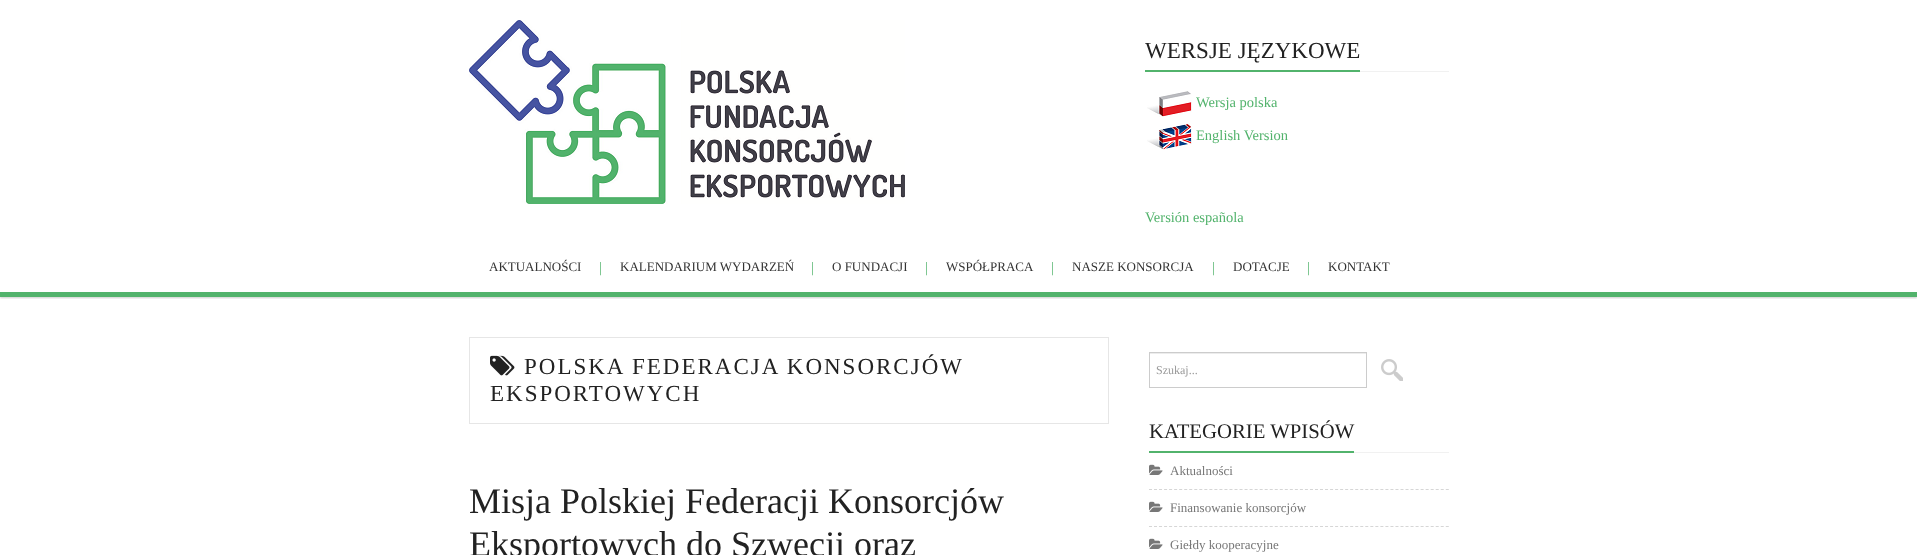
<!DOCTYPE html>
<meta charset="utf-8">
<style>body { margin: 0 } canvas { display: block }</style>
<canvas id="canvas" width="1917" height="555"></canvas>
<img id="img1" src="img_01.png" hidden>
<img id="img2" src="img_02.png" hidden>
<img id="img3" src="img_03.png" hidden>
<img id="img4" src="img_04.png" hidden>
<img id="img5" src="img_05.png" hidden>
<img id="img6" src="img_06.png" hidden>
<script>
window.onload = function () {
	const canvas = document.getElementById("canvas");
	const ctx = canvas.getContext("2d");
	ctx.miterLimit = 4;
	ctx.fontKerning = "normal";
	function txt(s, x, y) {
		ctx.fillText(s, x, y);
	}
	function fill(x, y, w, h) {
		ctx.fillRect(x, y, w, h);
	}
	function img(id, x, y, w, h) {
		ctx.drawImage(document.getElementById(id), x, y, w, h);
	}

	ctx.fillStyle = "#FFFFFF";
	fill(0, 0, 1917, 555);
	ctx.save();
	ctx.beginPath();
	ctx.rect(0, 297, 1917, 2);
	ctx.clip();
	ctx.fillStyle = "rgba(0, 0, 0, 0.2)";
	ctx.filter = "blur(1px)";
	ctx.beginPath();
	ctx.rect(0, 1, 1917, 297);
	ctx.fill();
	ctx.filter = "none";
	ctx.restore();
	ctx.fillStyle = "#52B36C";
	fill(0, 292, 1917, 5);
	img("img1", 469, 20, 436, 184);
	ctx.fillStyle = "#F1F1F1";
	fill(1360, 71, 89, 1);
	ctx.fillStyle = "#52B36C";
	fill(1145, 70, 215, 2);
	img("img2", 1147, 91, 45, 26);
	img("img3", 1147, 123, 45, 27);
	ctx.strokeStyle = "#E6E6E6";
	ctx.strokeRect(469.5, 337.5, 639, 86);
	img("img4", 490, 355, 25, 21);
	ctx.fillStyle = "#ECECEC";
	fill(1150, 353, 216, 1);
	ctx.strokeStyle = "#CCCCCC";
	ctx.strokeRect(1149.5, 352.5, 217, 35);
	img("img5", 1381, 359, 22, 22);
	ctx.fillStyle = "#F1F1F1";
	fill(1354, 452, 95, 1);
	ctx.fillStyle = "#52B36C";
	fill(1149, 451, 205, 2);
	ctx.beginPath();
	ctx.moveTo(1149, 489.5);
	ctx.lineTo(1449, 489.5);
	ctx.strokeStyle = "#D6D6D6";
	ctx.setLineDash([3, 2.03]);
	ctx.stroke();
	img("img6", 1149, 464, 14, 11);
	ctx.beginPath();
	ctx.moveTo(1149, 526.5);
	ctx.lineTo(1449, 526.5);
	ctx.stroke();
	img("img6", 1149, 501, 14, 11);
	img("img6", 1149, 538, 14, 11);
	ctx.font = "23px Liberation Serif";
	ctx.fillStyle = "#222222";
	txt("WERSJE JĘZYKOWE", 1145, 58);
	ctx.font = "14.5px Liberation Serif";
	ctx.fillStyle = "#52B36C";
	txt("Wersja polska", 1196, 107);
	txt("English Version", 1196, 140);
	txt("Versión española", 1145, 222);
	ctx.font = "13px Liberation Serif";
	ctx.fillStyle = "#333333";
	txt("AKTUALNOŚCI", 489, 271);
	ctx.font = "14.5px Liberation Serif";
	ctx.fillStyle = "#52B36C";
	txt("|", 599, 272);
	ctx.font = "13px Liberation Serif";
	ctx.fillStyle = "#333333";
	txt("KALENDARIUM WYDARZEŃ", 620, 271);
	ctx.font = "14.5px Liberation Serif";
	ctx.fillStyle = "#52B36C";
	txt("|", 811, 272);
	ctx.font = "13px Liberation Serif";
	ctx.fillStyle = "#333333";
	txt("O FUNDACJI", 832, 271);
	ctx.font = "14.5px Liberation Serif";
	ctx.fillStyle = "#52B36C";
	txt("|", 925, 272);
	ctx.font = "13px Liberation Serif";
	ctx.fillStyle = "#333333";
	txt("WSPÓŁPRACA", 946, 271);
	ctx.font = "14.5px Liberation Serif";
	ctx.fillStyle = "#52B36C";
	txt("|", 1051, 272);
	ctx.font = "13px Liberation Serif";
	ctx.fillStyle = "#333333";
	txt("NASZE KONSORCJA", 1072, 271);
	ctx.font = "14.5px Liberation Serif";
	ctx.fillStyle = "#52B36C";
	txt("|", 1212, 272);
	ctx.font = "13px Liberation Serif";
	ctx.fillStyle = "#333333";
	txt("DOTACJE", 1233, 271);
	ctx.font = "14.5px Liberation Serif";
	ctx.fillStyle = "#52B36C";
	txt("|", 1307, 272);
	ctx.font = "13px Liberation Serif";
	ctx.fillStyle = "#333333";
	txt("KONTAKT", 1328, 271);
	ctx.letterSpacing = "2px";
	ctx.font = "23px Liberation Serif";
	ctx.fillStyle = "#222222";
	txt("POLSKA FEDERACJA KONSORCJÓW", 524, 374);
	txt("EKSPORTOWYCH", 490, 401);
	ctx.letterSpacing = "0px";
	ctx.font = "36px Liberation Serif";
	txt("Misja Polskiej Federacji Konsorcjów", 469, 513);
	txt("Eksportowych do Szwecji oraz", 469, 556);
	ctx.font = "12px Liberation Serif";
	ctx.fillStyle = "#999999";
	txt("Szukaj...", 1156, 374);
	ctx.font = "20.75px Liberation Serif";
	ctx.fillStyle = "#222222";
	txt("KATEGORIE WPISÓW", 1149, 438);
	ctx.font = "13px Liberation Serif";
	ctx.fillStyle = "#777777";
	txt("Aktualności", 1170, 475);
	txt("Finansowanie konsorcjów", 1170, 512);
	txt("Giełdy kooperacyjne", 1170, 549);
};
</script>
